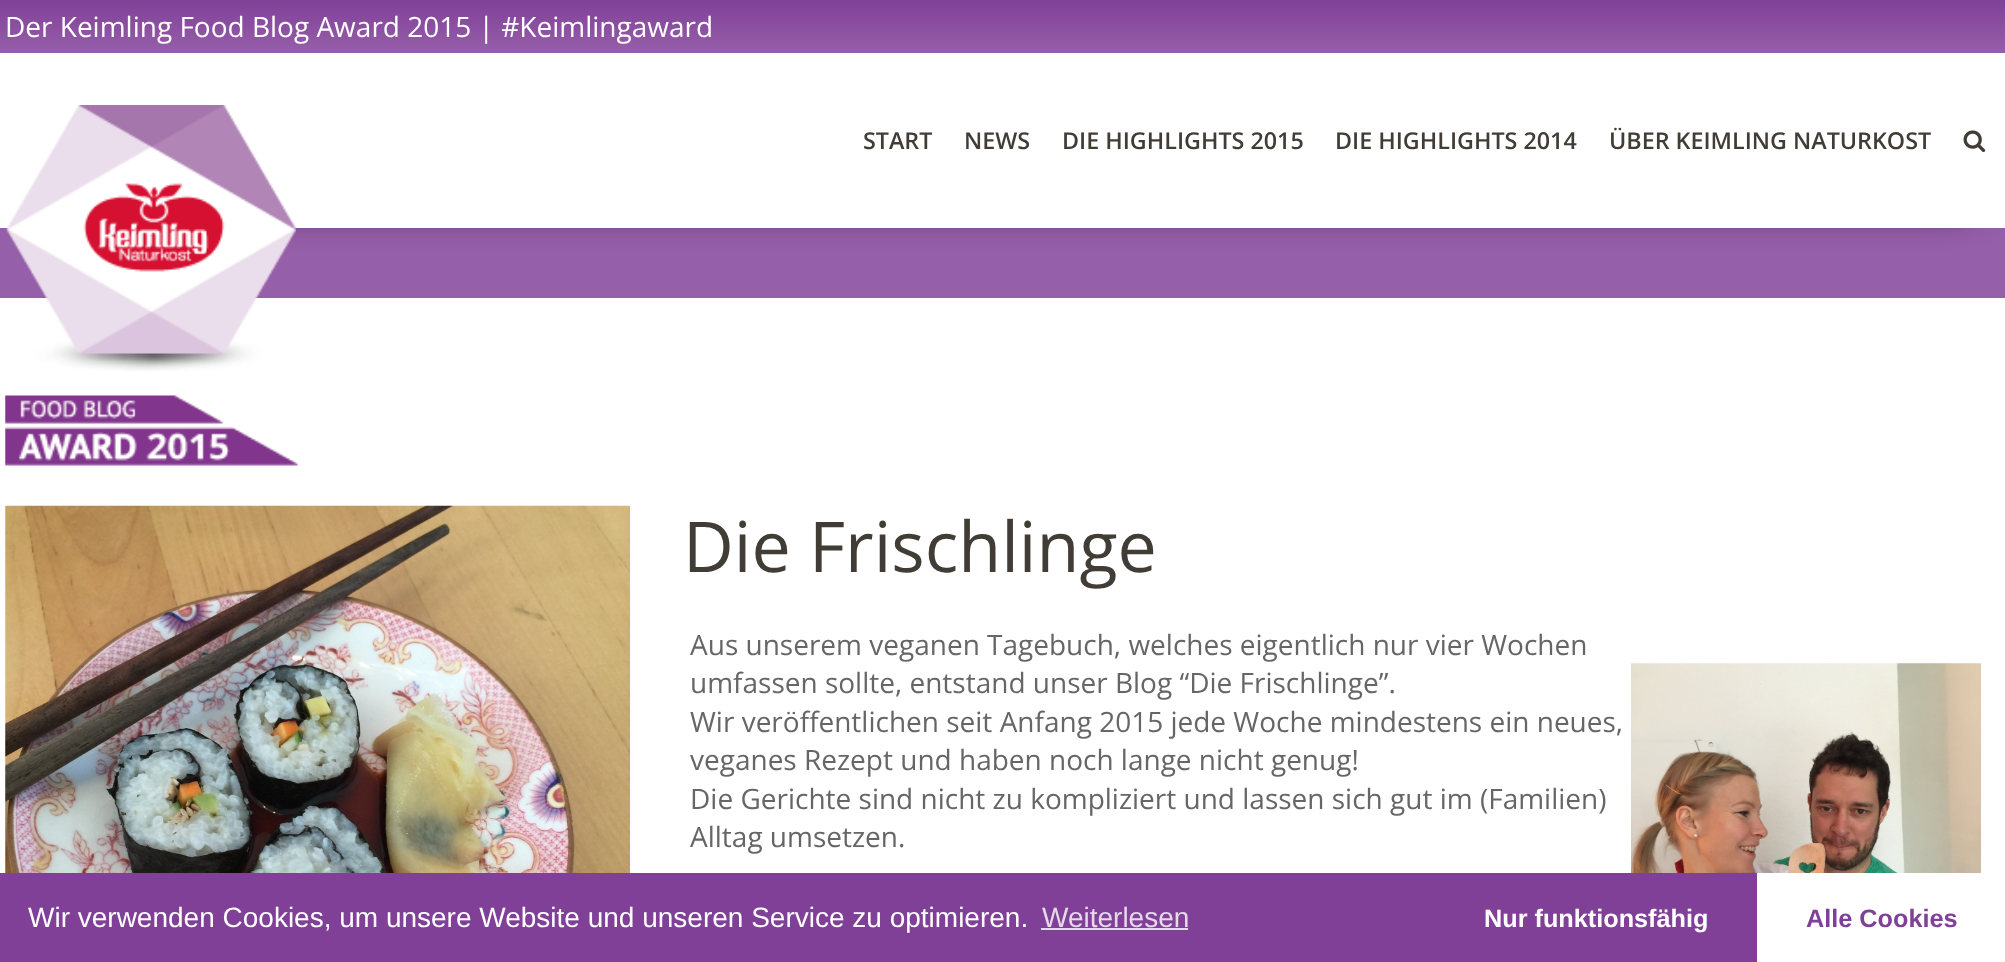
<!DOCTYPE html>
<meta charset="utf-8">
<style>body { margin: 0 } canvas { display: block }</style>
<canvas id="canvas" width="2005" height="962"></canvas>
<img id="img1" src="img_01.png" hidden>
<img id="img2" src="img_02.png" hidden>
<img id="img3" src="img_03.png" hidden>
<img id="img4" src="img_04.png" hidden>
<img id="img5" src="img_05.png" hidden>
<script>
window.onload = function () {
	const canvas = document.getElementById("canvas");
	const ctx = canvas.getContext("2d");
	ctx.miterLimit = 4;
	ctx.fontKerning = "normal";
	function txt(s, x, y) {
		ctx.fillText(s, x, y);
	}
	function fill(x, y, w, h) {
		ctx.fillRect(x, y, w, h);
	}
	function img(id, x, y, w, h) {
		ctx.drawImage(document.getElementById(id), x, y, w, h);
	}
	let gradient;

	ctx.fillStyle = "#FFFFFF";
	fill(0, 0, 2005, 962);
	ctx.fillStyle = "#965FA9";
	fill(0, 228, 2005, 70);
	ctx.save();
	ctx.beginPath();
	ctx.moveTo(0, 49);
	ctx.lineTo(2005, 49);
	ctx.lineTo(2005, 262);
	ctx.lineTo(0, 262);
	ctx.closePath();
	ctx.moveTo(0, 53);
	ctx.lineTo(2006, 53);
	ctx.lineTo(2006, 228);
	ctx.lineTo(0, 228);
	ctx.closePath();
	ctx.clip("evenodd");
	ctx.fillStyle = "#000000";
	ctx.filter = "blur(17.5px)";
	ctx.beginPath();
	ctx.rect(35, 103, 1936, 105);
	ctx.fill();
	ctx.filter = "none";
	ctx.restore();
	gradient = ctx.createLinearGradient(1003, 0, 1003, 53);
	gradient.addColorStop(0, "#804098");
	gradient.addColorStop(1, "#965FA9");
	ctx.fillStyle = gradient;
	fill(0, 0, 2005, 53);
	ctx.fillStyle = "rgba(255, 255, 255, 0.9)";
	fill(18, 227, 1970, 1);
	img("img1", 6, 105, 290, 266);
	img("img2", 1963, 130, 23, 23);
	img("img3", 5, 395, 293, 71);
	img("img4", 5, 505, 625, 368);
	img("img5", 1631, 663, 350, 210);
	ctx.fillStyle = "#804098";
	fill(0, 873, 1757, 89);
	ctx.fillStyle = "#E6D9EA";
	fill(1041, 928, 147, 2);
	ctx.font = "28px Open Sans";
	ctx.fillStyle = "#FFFFFF";
	txt("Der Keimling Food Blog Award 2015 | #Keimlingaward", 5, 37);
	ctx.font = "600 23.3px Open Sans";
	ctx.fillStyle = "#413C35";
	txt("START", 863, 149);
	txt("NEWS", 964, 149);
	txt("DIE HIGHLIGHTS 2015", 1062, 149);
	txt("DIE HIGHLIGHTS 2014", 1335, 149);
	txt("ÜBER KEIMLING NATURKOST", 1609, 149);
	ctx.font = "70px Open Sans";
	txt("Die Frischlinge", 683, 572);
	ctx.font = "28px Open Sans";
	ctx.fillStyle = "#666666";
	txt("Aus unserem veganen Tagebuch, welches eigentlich nur vier Wochen", 690, 655);
	txt("umfassen sollte, entstand unser Blog “Die Frischlinge”.", 690, 693);
	txt("Wir veröffentlichen seit Anfang 2015 jede Woche mindestens ein neues,", 690, 732);
	txt("veganes Rezept und haben noch lange nicht genug!", 690, 770);
	txt("Die Gerichte sind nicht zu kompliziert und lassen sich gut im (Familien)", 690, 809);
	txt("Alltag umsetzen.", 690, 847);
	ctx.font = "28px Liberation Sans";
	ctx.fillStyle = "#FFFFFF";
	txt("Wir verwenden Cookies, um unsere Website und unseren Service zu optimieren.", 28, 927);
	ctx.fillStyle = "#E6D9EA";
	txt("Weiterlesen", 1042, 927);
	ctx.font = "bold 25.25px Liberation Sans";
	ctx.fillStyle = "#FFFFFF";
	txt("Nur funktionsfähig", 1484, 927);
	ctx.fillStyle = "#804098";
	txt("Alle Cookies", 1806, 927);
};
</script>
